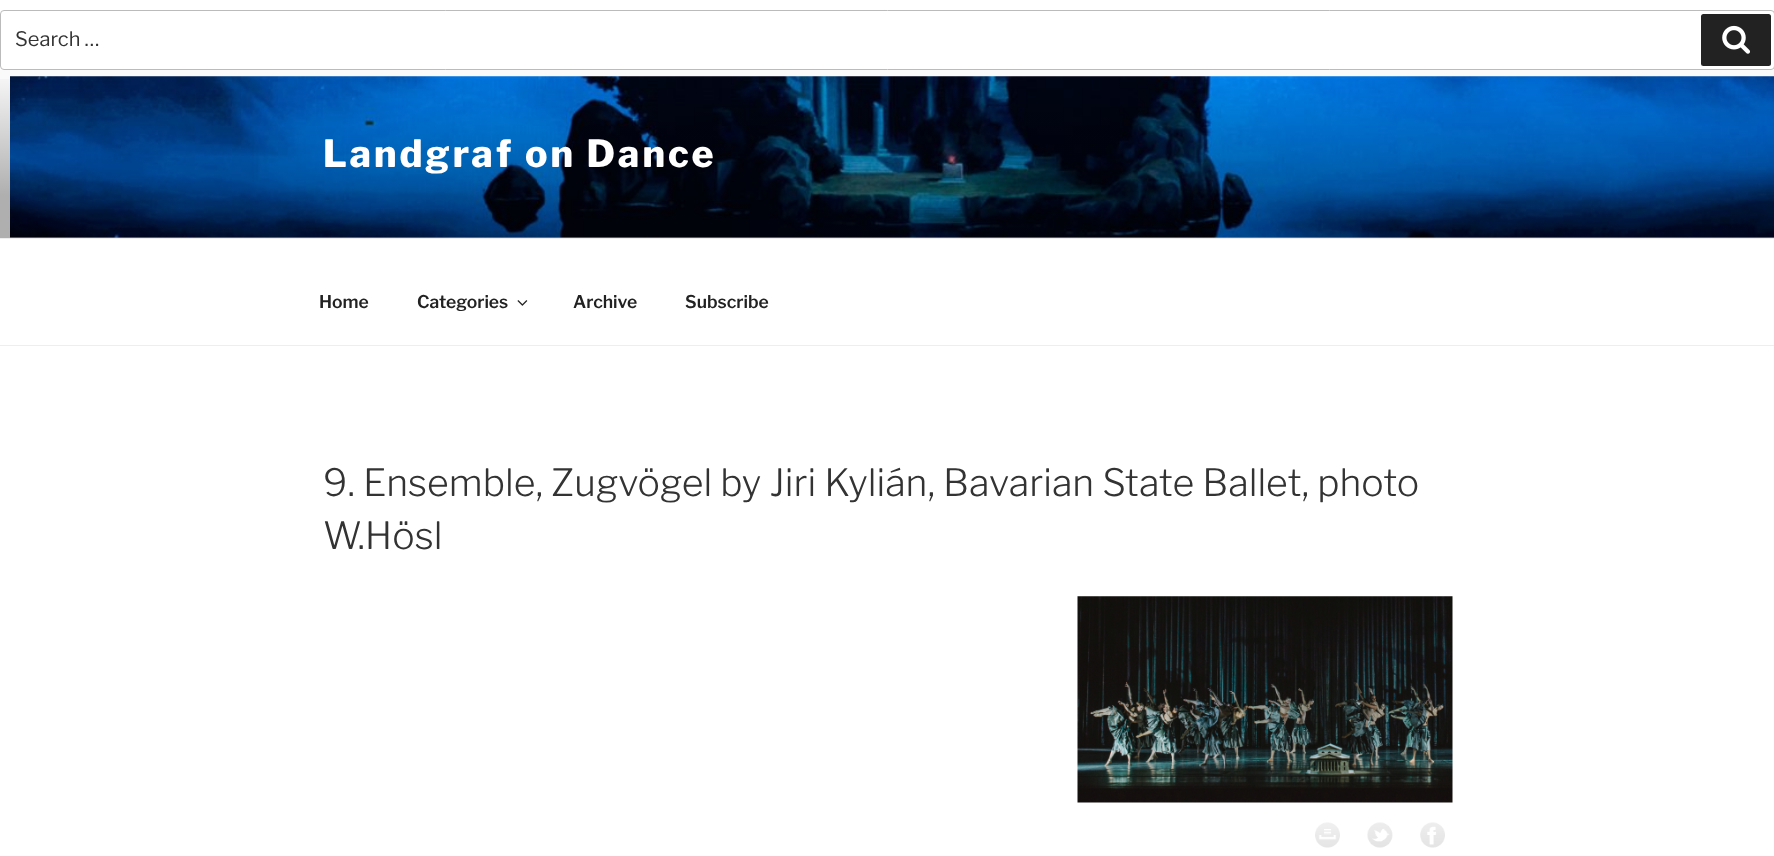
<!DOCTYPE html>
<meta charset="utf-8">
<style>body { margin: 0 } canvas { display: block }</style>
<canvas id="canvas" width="1774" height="856"></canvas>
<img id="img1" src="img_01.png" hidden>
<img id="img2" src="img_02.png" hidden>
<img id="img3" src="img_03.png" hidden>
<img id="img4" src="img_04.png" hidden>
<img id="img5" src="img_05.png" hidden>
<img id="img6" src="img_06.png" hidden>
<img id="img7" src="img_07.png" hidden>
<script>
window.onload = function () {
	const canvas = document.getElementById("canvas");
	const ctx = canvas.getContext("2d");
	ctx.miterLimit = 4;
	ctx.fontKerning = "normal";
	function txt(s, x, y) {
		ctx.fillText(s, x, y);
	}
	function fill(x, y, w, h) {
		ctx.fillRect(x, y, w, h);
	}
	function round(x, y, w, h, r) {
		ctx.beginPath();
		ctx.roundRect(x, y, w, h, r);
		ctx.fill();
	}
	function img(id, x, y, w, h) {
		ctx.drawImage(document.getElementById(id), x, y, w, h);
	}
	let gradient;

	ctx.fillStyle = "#FFFFFF";
	fill(0, 0, 1774, 856);
	ctx.beginPath();
	ctx.roundRect(0.5, 10.5, 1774, 59, 3.5);
	ctx.strokeStyle = "#BBBBBB";
	ctx.stroke();
	ctx.fillStyle = "#222222";
	round(1701, 14, 70, 52, 2.5);
	img("img1", 1722, 25, 28, 29);
	ctx.fillStyle = "#FAFAFA";
	fill(0, 70, 1774, 168);
	img("img2", 10, 76, 1764, 162);
	gradient = ctx.createLinearGradient(888, 70, 888, 238);
	gradient.addColorStop(0, "rgba(0, 0, 0, 0)");
	gradient.addColorStop(0.75, "rgba(0, 0, 0, 0.3)");
	gradient.addColorStop(1, "rgba(0, 0, 0, 0.3)");
	ctx.fillStyle = gradient;
	fill(0, 79, 1774, 159);
	ctx.fillStyle = "#EEEEEE";
	fill(0, 238, 1774, 1);
	fill(0, 345, 1774, 1);
	img("img3", 517, 300, 11, 6);
	img("img4", 1077, 596, 376, 207);
	img("img5", 1315, 822, 25, 26);
	img("img6", 1367, 822, 26, 26);
	img("img7", 1420, 822, 25, 26);
	ctx.font = "20px Libre Franklin";
	ctx.fillStyle = "#333333";
	txt("Search …", 15, 46);
	ctx.letterSpacing = "3px";
	ctx.font = "800 37.5px Libre Franklin";
	ctx.fillStyle = "#FFFFFF";
	txt("Landgraf on Dance", 323, 167);
	ctx.letterSpacing = "0px";
	ctx.font = "600 17.5px Libre Franklin";
	ctx.fillStyle = "#222222";
	txt("Home", 319, 308);
	txt("Categories", 417, 308);
	txt("Archive", 573, 308);
	txt("Subscribe", 685, 308);
	ctx.font = "300 37.5px Libre Franklin";
	ctx.fillStyle = "#333333";
	txt("9. Ensemble, Zugvögel by Jiri Kylián, Bavarian State Ballet, photo", 323, 496);
	txt("W.Hösl", 323, 549);
};
</script>
